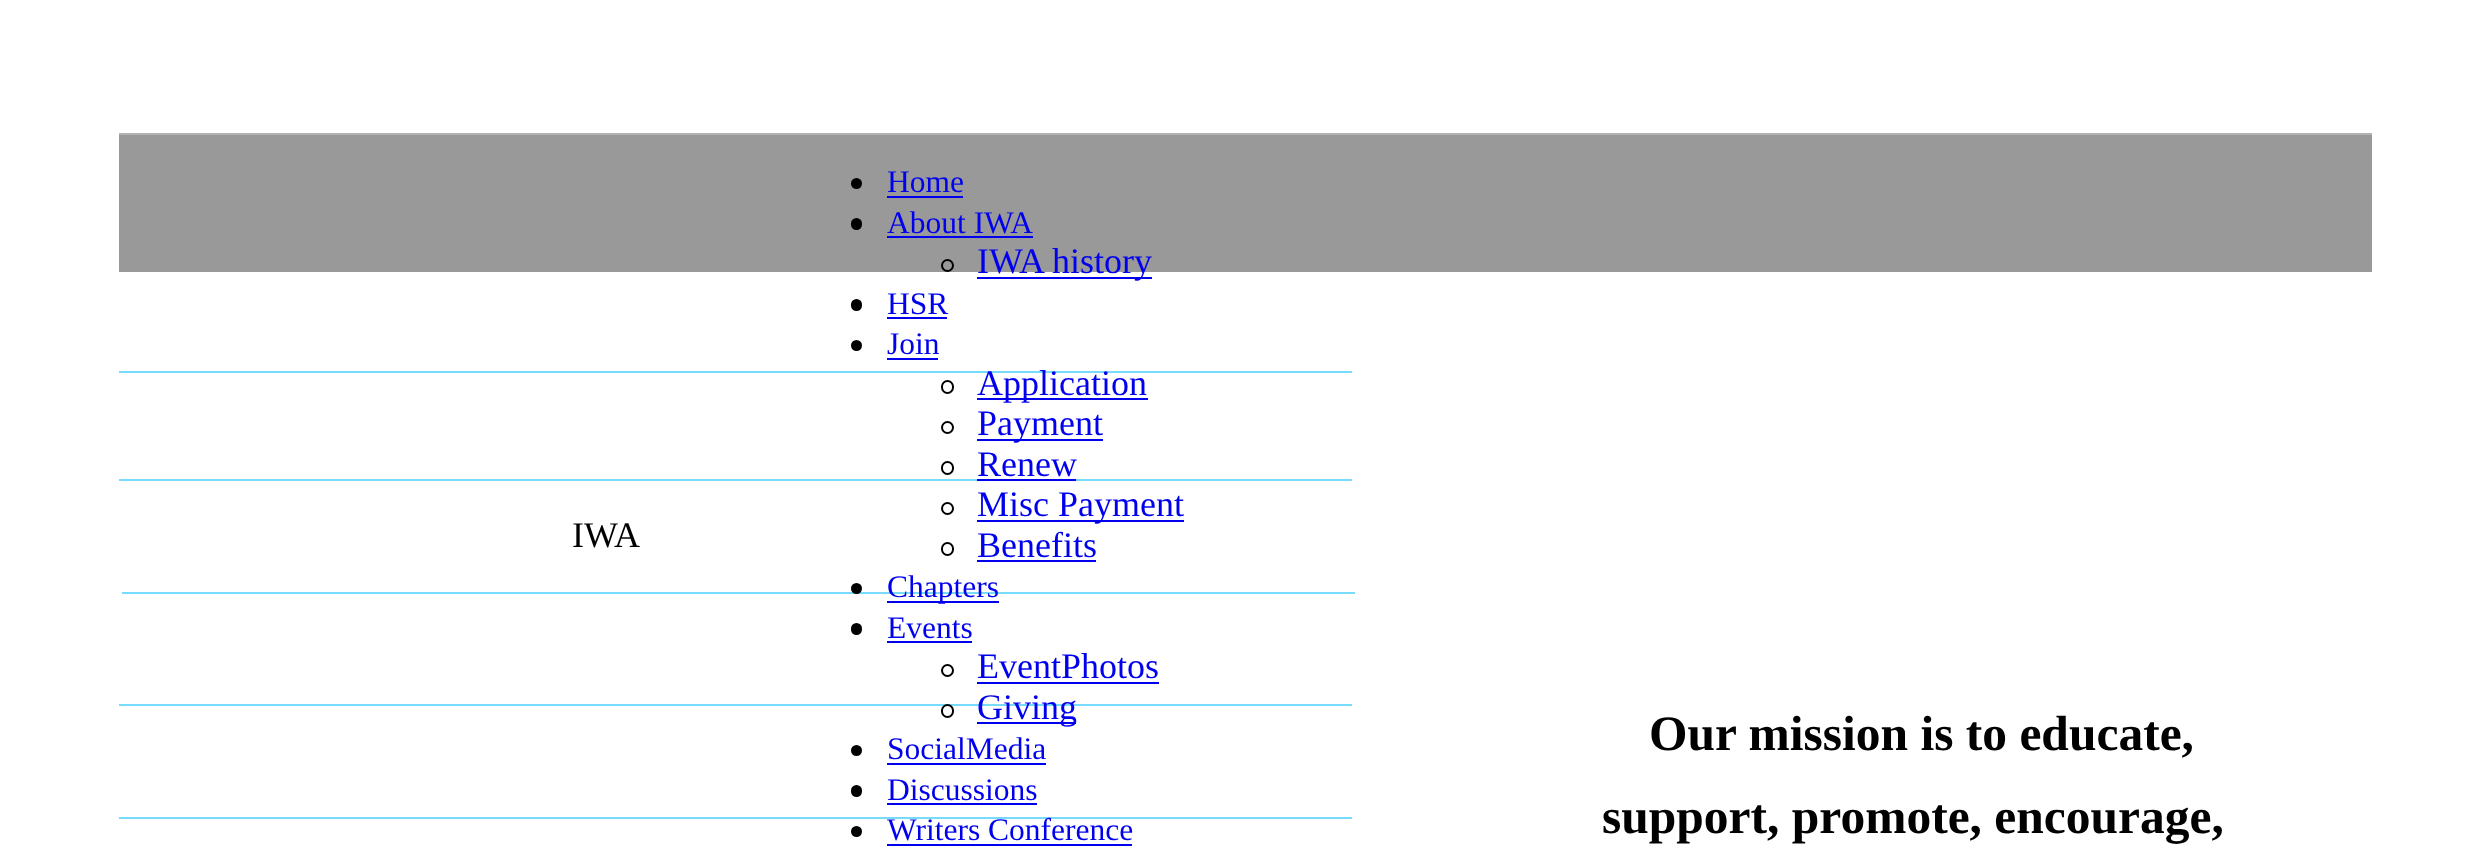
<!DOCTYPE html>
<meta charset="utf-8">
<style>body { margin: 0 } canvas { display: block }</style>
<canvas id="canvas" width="2488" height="855"></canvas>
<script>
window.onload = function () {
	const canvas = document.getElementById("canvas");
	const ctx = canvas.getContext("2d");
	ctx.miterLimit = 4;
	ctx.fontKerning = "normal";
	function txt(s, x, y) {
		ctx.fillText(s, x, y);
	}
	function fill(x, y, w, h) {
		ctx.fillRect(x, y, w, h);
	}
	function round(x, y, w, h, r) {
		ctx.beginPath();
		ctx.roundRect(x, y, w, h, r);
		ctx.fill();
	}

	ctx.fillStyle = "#FFFFFF";
	fill(0, 0, 2488, 855);
	ctx.fillStyle = "#B2B2B2";
	fill(119, 133, 2253, 2);
	ctx.fillStyle = "#999999";
	fill(119, 135, 2253, 137);
	ctx.fillStyle = "#000000";
	ctx.beginPath();
	ctx.arc(856.5, 183.5, 5.5, 0, Math.PI * 2);
	ctx.fill();
	ctx.fillStyle = "#0000EE";
	fill(887, 196, 76, 2);
	ctx.fillStyle = "#000000";
	round(851, 218, 11, 12, 5.5);
	ctx.fillStyle = "#0000EE";
	fill(887, 236, 146, 2);
	ctx.beginPath();
	ctx.arc(947.5, 265.5, 5.5, 0, Math.PI * 2);
	ctx.strokeStyle = "#000000";
	ctx.lineWidth = 2;
	ctx.stroke();
	fill(977, 277, 175, 2);
	ctx.fillStyle = "#000000";
	round(851, 299, 11, 12, 5.5);
	ctx.fillStyle = "#0000EE";
	fill(887, 317, 60, 2);
	ctx.fillStyle = "#000000";
	ctx.beginPath();
	ctx.arc(856.5, 345.5, 5.5, 0, Math.PI * 2);
	ctx.fill();
	ctx.fillStyle = "#0000EE";
	fill(887, 358, 51, 2);
	ctx.beginPath();
	ctx.roundRect(942, 381, 11, 12, 5.5);
	ctx.stroke();
	fill(977, 398, 171, 2);
	ctx.beginPath();
	ctx.arc(947.5, 427.5, 5.5, 0, Math.PI * 2);
	ctx.stroke();
	fill(977, 439, 126, 2);
	ctx.beginPath();
	ctx.roundRect(942, 462, 11, 12, 5.5);
	ctx.stroke();
	ctx.fillStyle = "#77DBFD";
	fill(119, 479, 1233, 2);
	ctx.fillStyle = "#0000EE";
	fill(977, 479, 99, 2);
	ctx.beginPath();
	ctx.arc(947.5, 508.5, 5.5, 0, Math.PI * 2);
	ctx.stroke();
	fill(977, 520, 207, 2);
	ctx.beginPath();
	ctx.roundRect(942, 543, 11, 12, 5.5);
	ctx.stroke();
	fill(977, 560, 119, 2);
	ctx.fillStyle = "#77DBFD";
	fill(122, 592, 1233, 2);
	ctx.fillStyle = "#000000";
	ctx.beginPath();
	ctx.arc(856.5, 588.5, 5.5, 0, Math.PI * 2);
	ctx.fill();
	ctx.fillStyle = "#0000EE";
	fill(887, 601, 112, 2);
	ctx.fillStyle = "#000000";
	round(851, 623, 11, 12, 5.5);
	ctx.fillStyle = "#0000EE";
	fill(887, 641, 85, 2);
	ctx.beginPath();
	ctx.arc(947.5, 670.5, 5.5, 0, Math.PI * 2);
	ctx.stroke();
	fill(977, 682, 182, 2);
	ctx.fillStyle = "#77DBFD";
	fill(119, 704, 1233, 2);
	ctx.beginPath();
	ctx.roundRect(942, 705, 11, 12, 5.5);
	ctx.stroke();
	ctx.fillStyle = "#0000EE";
	fill(977, 722, 99, 2);
	ctx.fillStyle = "#000000";
	ctx.beginPath();
	ctx.arc(856.5, 750.5, 5.5, 0, Math.PI * 2);
	ctx.fill();
	ctx.fillStyle = "#0000EE";
	fill(887, 763, 159, 2);
	ctx.fillStyle = "#000000";
	round(851, 785, 11, 12, 5.5);
	ctx.fillStyle = "#0000EE";
	fill(887, 803, 150, 2);
	ctx.fillStyle = "#000000";
	ctx.beginPath();
	ctx.arc(856.5, 831.5, 5.5, 0, Math.PI * 2);
	ctx.fill();
	ctx.fillStyle = "#0000EE";
	fill(887, 844, 245, 2);
	ctx.fillStyle = "#77DBFD";
	fill(119, 371, 1233, 2);
	fill(119, 817, 1233, 2);
	ctx.font = "31.5px Liberation Serif";
	ctx.fillStyle = "#0000EE";
	txt("Home", 887, 192);
	txt("About IWA", 887, 233);
	ctx.font = "36px Liberation Serif";
	txt("IWA history", 977, 273);
	ctx.font = "31.5px Liberation Serif";
	txt("HSR", 887, 314);
	txt("Join", 887, 354);
	ctx.font = "36px Liberation Serif";
	txt("Application", 977, 395);
	txt("Payment", 977, 435);
	txt("Renew", 977, 476);
	txt("Misc Payment", 977, 516);
	txt("Benefits", 977, 557);
	ctx.font = "31.5px Liberation Serif";
	txt("Chapters", 887, 597);
	txt("Events", 887, 638);
	ctx.font = "36px Liberation Serif";
	txt("EventPhotos", 977, 678);
	txt("Giving", 977, 719);
	ctx.font = "31.5px Liberation Serif";
	txt("SocialMedia", 887, 759);
	txt("Discussions", 887, 800);
	txt("Writers Conference", 887, 840);
	ctx.font = "36px Liberation Serif";
	ctx.fillStyle = "#000000";
	txt("IWA", 572, 547);
	ctx.font = "bold 49.5px Liberation Serif";
	txt("Our mission is to educate,", 1649, 750);
	txt("support, promote, encourage,", 1602, 833);
};
</script>
